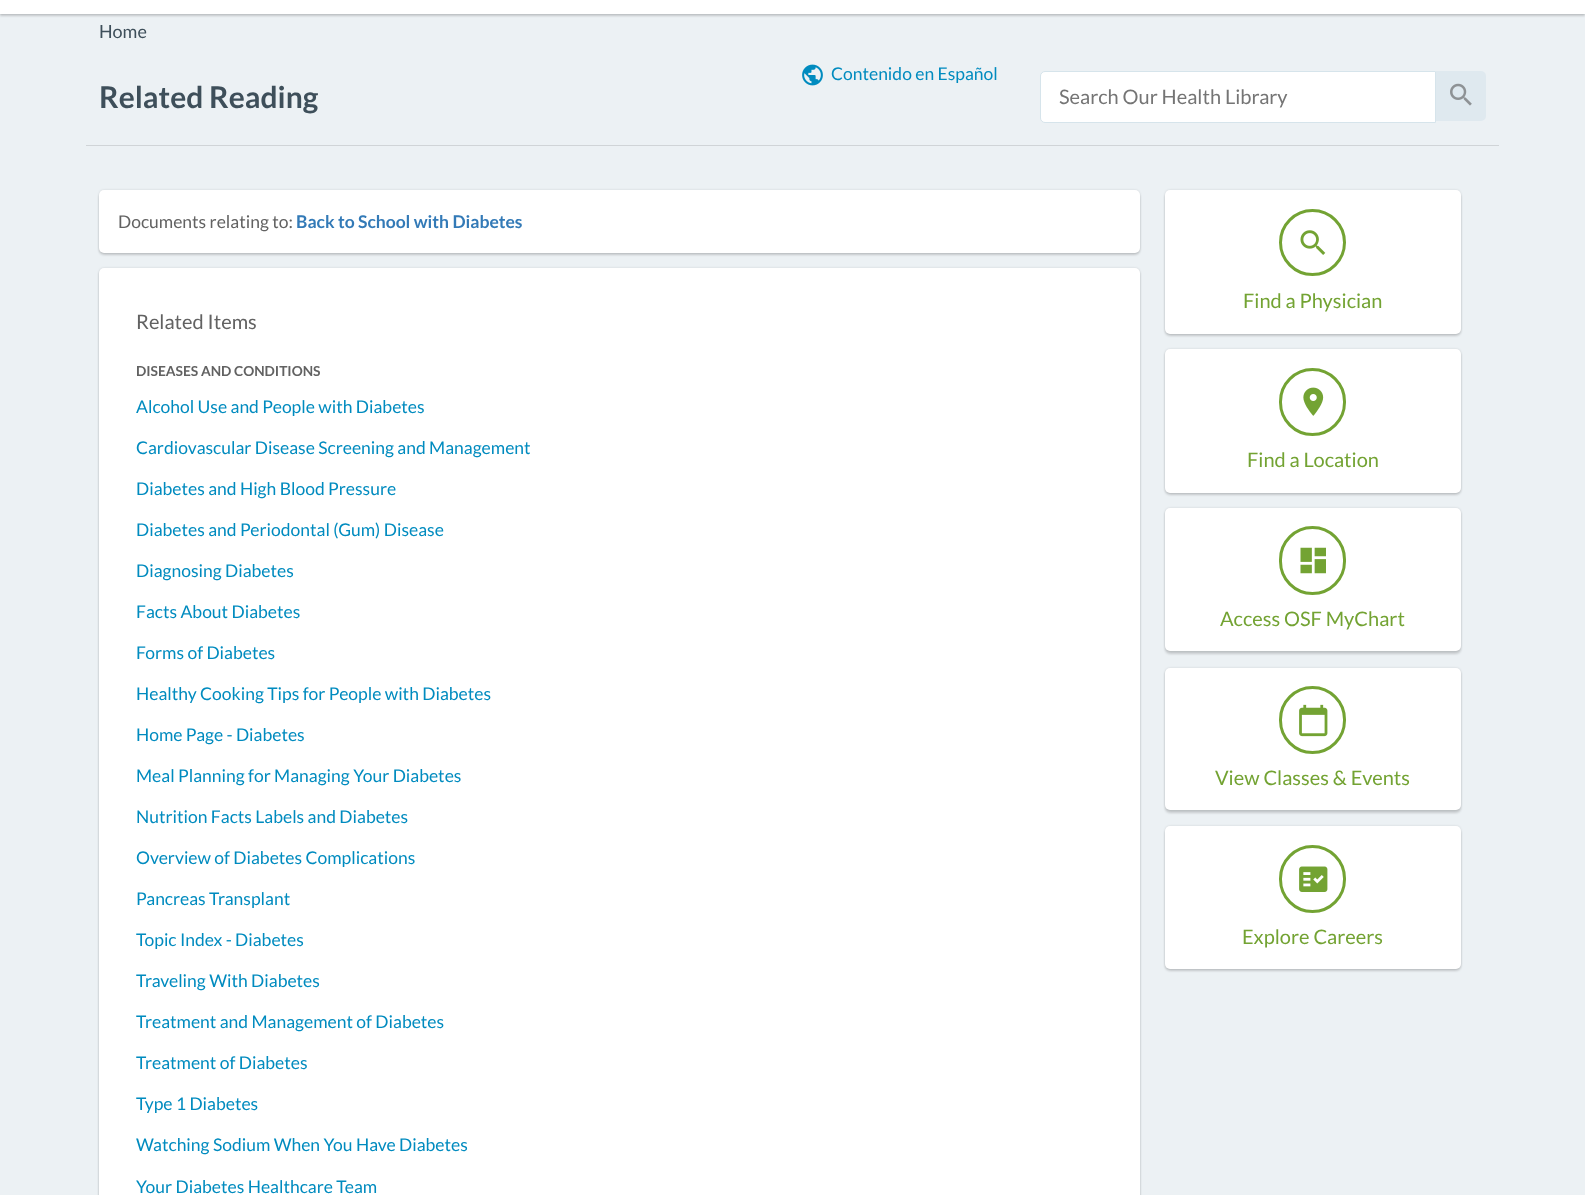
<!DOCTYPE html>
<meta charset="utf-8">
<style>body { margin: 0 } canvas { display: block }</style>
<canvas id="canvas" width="1585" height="1195"></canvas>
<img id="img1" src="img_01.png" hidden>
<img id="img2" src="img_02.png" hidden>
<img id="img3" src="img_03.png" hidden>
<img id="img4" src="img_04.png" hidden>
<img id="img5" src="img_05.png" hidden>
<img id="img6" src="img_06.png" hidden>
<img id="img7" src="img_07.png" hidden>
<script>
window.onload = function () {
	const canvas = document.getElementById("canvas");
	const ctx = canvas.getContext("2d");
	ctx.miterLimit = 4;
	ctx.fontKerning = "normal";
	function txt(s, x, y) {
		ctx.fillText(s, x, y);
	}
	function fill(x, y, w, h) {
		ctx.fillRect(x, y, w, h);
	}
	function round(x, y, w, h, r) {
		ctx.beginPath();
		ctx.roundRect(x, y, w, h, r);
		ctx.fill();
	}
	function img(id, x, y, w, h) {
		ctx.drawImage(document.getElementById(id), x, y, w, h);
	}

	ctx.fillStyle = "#ECF1F4";
	fill(0, 0, 1585, 1195);
	ctx.fillStyle = "#D0D4D7";
	fill(86, 145, 1413, 1);
	ctx.fillStyle = "#FFFFFF";
	ctx.beginPath();
	ctx.roundRect(1040.5, 71.5, 395, 51, [4.5, 0, 0, 4.5]);
	ctx.fill();
	ctx.strokeStyle = "#D6E4EB";
	ctx.stroke();
	ctx.fillStyle = "#DFE9EF";
	ctx.beginPath();
	ctx.roundRect(1436, 71, 50, 50, [0, 5, 5, 0]);
	ctx.fill();
	img("img1", 1450, 83, 22, 23);
	ctx.fillStyle = "rgba(0, 0, 0, 0.12)";
	ctx.filter = "blur(1px)";
	ctx.beginPath();
	ctx.roundRect(99, 190, 1041, 63, 5);
	ctx.fill();
	ctx.filter = "none";
	ctx.fillStyle = "rgba(0, 0, 0, 0.16)";
	ctx.filter = "blur(1px)";
	ctx.beginPath();
	ctx.roundRect(99, 193, 1041, 62, 5);
	ctx.fill();
	ctx.filter = "none";
	ctx.fillStyle = "#FFFFFF";
	round(99, 190, 1041, 63, 5);
	ctx.fillStyle = "rgba(0, 0, 0, 0.12)";
	ctx.filter = "blur(1px)";
	ctx.beginPath();
	ctx.roundRect(99, 268, 1041, 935, 5);
	ctx.fill();
	ctx.filter = "none";
	ctx.fillStyle = "rgba(0, 0, 0, 0.16)";
	ctx.filter = "blur(1px)";
	ctx.beginPath();
	ctx.roundRect(99, 270, 1041, 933, 5);
	ctx.fill();
	ctx.filter = "none";
	ctx.fillStyle = "#FFFFFF";
	round(99, 268, 1041, 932, 5);
	ctx.fillStyle = "rgba(0, 0, 0, 0.12)";
	ctx.filter = "blur(1px)";
	ctx.beginPath();
	ctx.roundRect(1165, 190, 296, 144, 5);
	ctx.fill();
	ctx.filter = "none";
	ctx.fillStyle = "rgba(0, 0, 0, 0.16)";
	ctx.filter = "blur(1px)";
	ctx.beginPath();
	ctx.roundRect(1165, 193, 296, 143, 5);
	ctx.fill();
	ctx.filter = "none";
	ctx.fillStyle = "#FFFFFF";
	round(1165, 190, 296, 144, 5);
	ctx.beginPath();
	ctx.arc(1312.5, 242.5, 32, 0, Math.PI * 2);
	ctx.strokeStyle = "#73A333";
	ctx.lineWidth = 3;
	ctx.stroke();
	img("img2", 1300, 230, 26, 25);
	ctx.fillStyle = "rgba(0, 0, 0, 0.12)";
	ctx.filter = "blur(1px)";
	ctx.beginPath();
	ctx.roundRect(1165, 349, 296, 144, 5);
	ctx.fill();
	ctx.filter = "none";
	ctx.fillStyle = "rgba(0, 0, 0, 0.16)";
	ctx.filter = "blur(1px)";
	ctx.beginPath();
	ctx.roundRect(1165, 351, 296, 144, 5);
	ctx.fill();
	ctx.filter = "none";
	ctx.fillStyle = "#FFFFFF";
	round(1165, 349, 296, 144, 5);
	ctx.beginPath();
	ctx.roundRect(1280.5, 369.5, 64, 65, 32);
	ctx.stroke();
	img("img3", 1303, 387, 21, 29);
	ctx.fillStyle = "rgba(0, 0, 0, 0.12)";
	ctx.filter = "blur(1px)";
	ctx.beginPath();
	ctx.roundRect(1165, 508, 296, 143, 5);
	ctx.fill();
	ctx.filter = "none";
	ctx.fillStyle = "rgba(0, 0, 0, 0.16)";
	ctx.filter = "blur(1px)";
	ctx.beginPath();
	ctx.roundRect(1165, 510, 296, 144, 5);
	ctx.fill();
	ctx.filter = "none";
	ctx.fillStyle = "#FFFFFF";
	round(1165, 508, 296, 143, 5);
	ctx.beginPath();
	ctx.roundRect(1280.5, 527.5, 64, 66, 32);
	ctx.stroke();
	img("img4", 1300, 547, 26, 27);
	ctx.fillStyle = "rgba(0, 0, 0, 0.12)";
	ctx.filter = "blur(1px)";
	ctx.beginPath();
	ctx.roundRect(1165, 668, 296, 142, 5);
	ctx.fill();
	ctx.filter = "none";
	ctx.fillStyle = "rgba(0, 0, 0, 0.16)";
	ctx.filter = "blur(1px)";
	ctx.beginPath();
	ctx.roundRect(1165, 670, 296, 143, 5);
	ctx.fill();
	ctx.filter = "none";
	ctx.fillStyle = "#FFFFFF";
	round(1165, 668, 296, 142, 5);
	ctx.beginPath();
	ctx.roundRect(1280.5, 687.5, 64, 65, 32);
	ctx.stroke();
	img("img5", 1299, 704, 29, 33);
	ctx.fillStyle = "rgba(0, 0, 0, 0.12)";
	ctx.filter = "blur(1px)";
	ctx.beginPath();
	ctx.roundRect(1165, 826, 296, 143, 5);
	ctx.fill();
	ctx.filter = "none";
	ctx.fillStyle = "rgba(0, 0, 0, 0.16)";
	ctx.filter = "blur(1px)";
	ctx.beginPath();
	ctx.roundRect(1165, 829, 296, 142, 5);
	ctx.fill();
	ctx.filter = "none";
	ctx.fillStyle = "#FFFFFF";
	round(1165, 826, 296, 143, 5);
	ctx.beginPath();
	ctx.roundRect(1280.5, 846.5, 64, 65, 32);
	ctx.stroke();
	img("img6", 1299, 866, 29, 26);
	ctx.fillStyle = "rgba(0, 0, 0, 0.12)";
	ctx.filter = "blur(1px)";
	ctx.beginPath();
	ctx.rect(0, -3, 1585, 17);
	ctx.fill();
	ctx.filter = "none";
	ctx.fillStyle = "rgba(0, 0, 0, 0.16)";
	ctx.filter = "blur(1px)";
	ctx.beginPath();
	ctx.rect(0, -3, 1585, 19);
	ctx.fill();
	ctx.filter = "none";
	ctx.fillStyle = "#FFFFFF";
	fill(0, 0, 1585, 14);
	img("img7", 802, 64, 21, 22);
	ctx.font = "18px Lato";
	ctx.fillStyle = "#3E4F5A";
	txt("Home", 99, 38);
	ctx.font = "bold 30px Lato";
	txt("Related Reading", 99, 108);
	ctx.font = "20px Lato";
	ctx.fillStyle = "#757575";
	txt("Search Our Health Library", 1059, 104);
	ctx.font = "17.5px Lato";
	ctx.fillStyle = "#626262";
	txt("Documents relating to:", 118, 228);
	ctx.font = "bold 17.5px Lato";
	ctx.fillStyle = "#337AB7";
	txt("Back to School with Diabetes", 296, 228);
	ctx.font = "20px Lato";
	ctx.fillStyle = "#626262";
	txt("Related Items", 136, 329);
	ctx.font = "bold 13.75px Lato";
	txt("DISEASES AND CONDITIONS", 136, 376);
	ctx.font = "17.5px Lato";
	ctx.fillStyle = "#008BBF";
	txt("Alcohol Use and People with Diabetes", 136, 413);
	txt("Cardiovascular Disease Screening and Management", 136, 454);
	txt("Diabetes and High Blood Pressure", 136, 495);
	txt("Diabetes and Periodontal (Gum) Disease", 136, 536);
	txt("Diagnosing Diabetes", 136, 577);
	txt("Facts About Diabetes", 136, 618);
	txt("Forms of Diabetes", 136, 659);
	txt("Healthy Cooking Tips for People with Diabetes", 136, 700);
	txt("Home Page - Diabetes", 136, 741);
	txt("Meal Planning for Managing Your Diabetes", 136, 782);
	txt("Nutrition Facts Labels and Diabetes", 136, 823);
	txt("Overview of Diabetes Complications", 136, 864);
	txt("Pancreas Transplant", 136, 905);
	txt("Topic Index - Diabetes", 136, 946);
	txt("Traveling With Diabetes", 136, 987);
	txt("Treatment and Management of Diabetes", 136, 1028);
	txt("Treatment of Diabetes", 136, 1069);
	txt("Type 1 Diabetes", 136, 1110);
	txt("Watching Sodium When You Have Diabetes", 136, 1151);
	txt("Your Diabetes Healthcare Team", 136, 1193);
	ctx.font = "20px Lato";
	ctx.fillStyle = "#73A333";
	txt("Find a Physician", 1243, 308);
	txt("Find a Location", 1247, 467);
	txt("Access OSF MyChart", 1220, 626);
	txt("View Classes & Events", 1215, 785);
	txt("Explore Careers", 1242, 944);
	ctx.font = "17.5px Lato";
	ctx.fillStyle = "#008BBF";
	txt("Contenido en Español", 831, 80);
};
</script>
